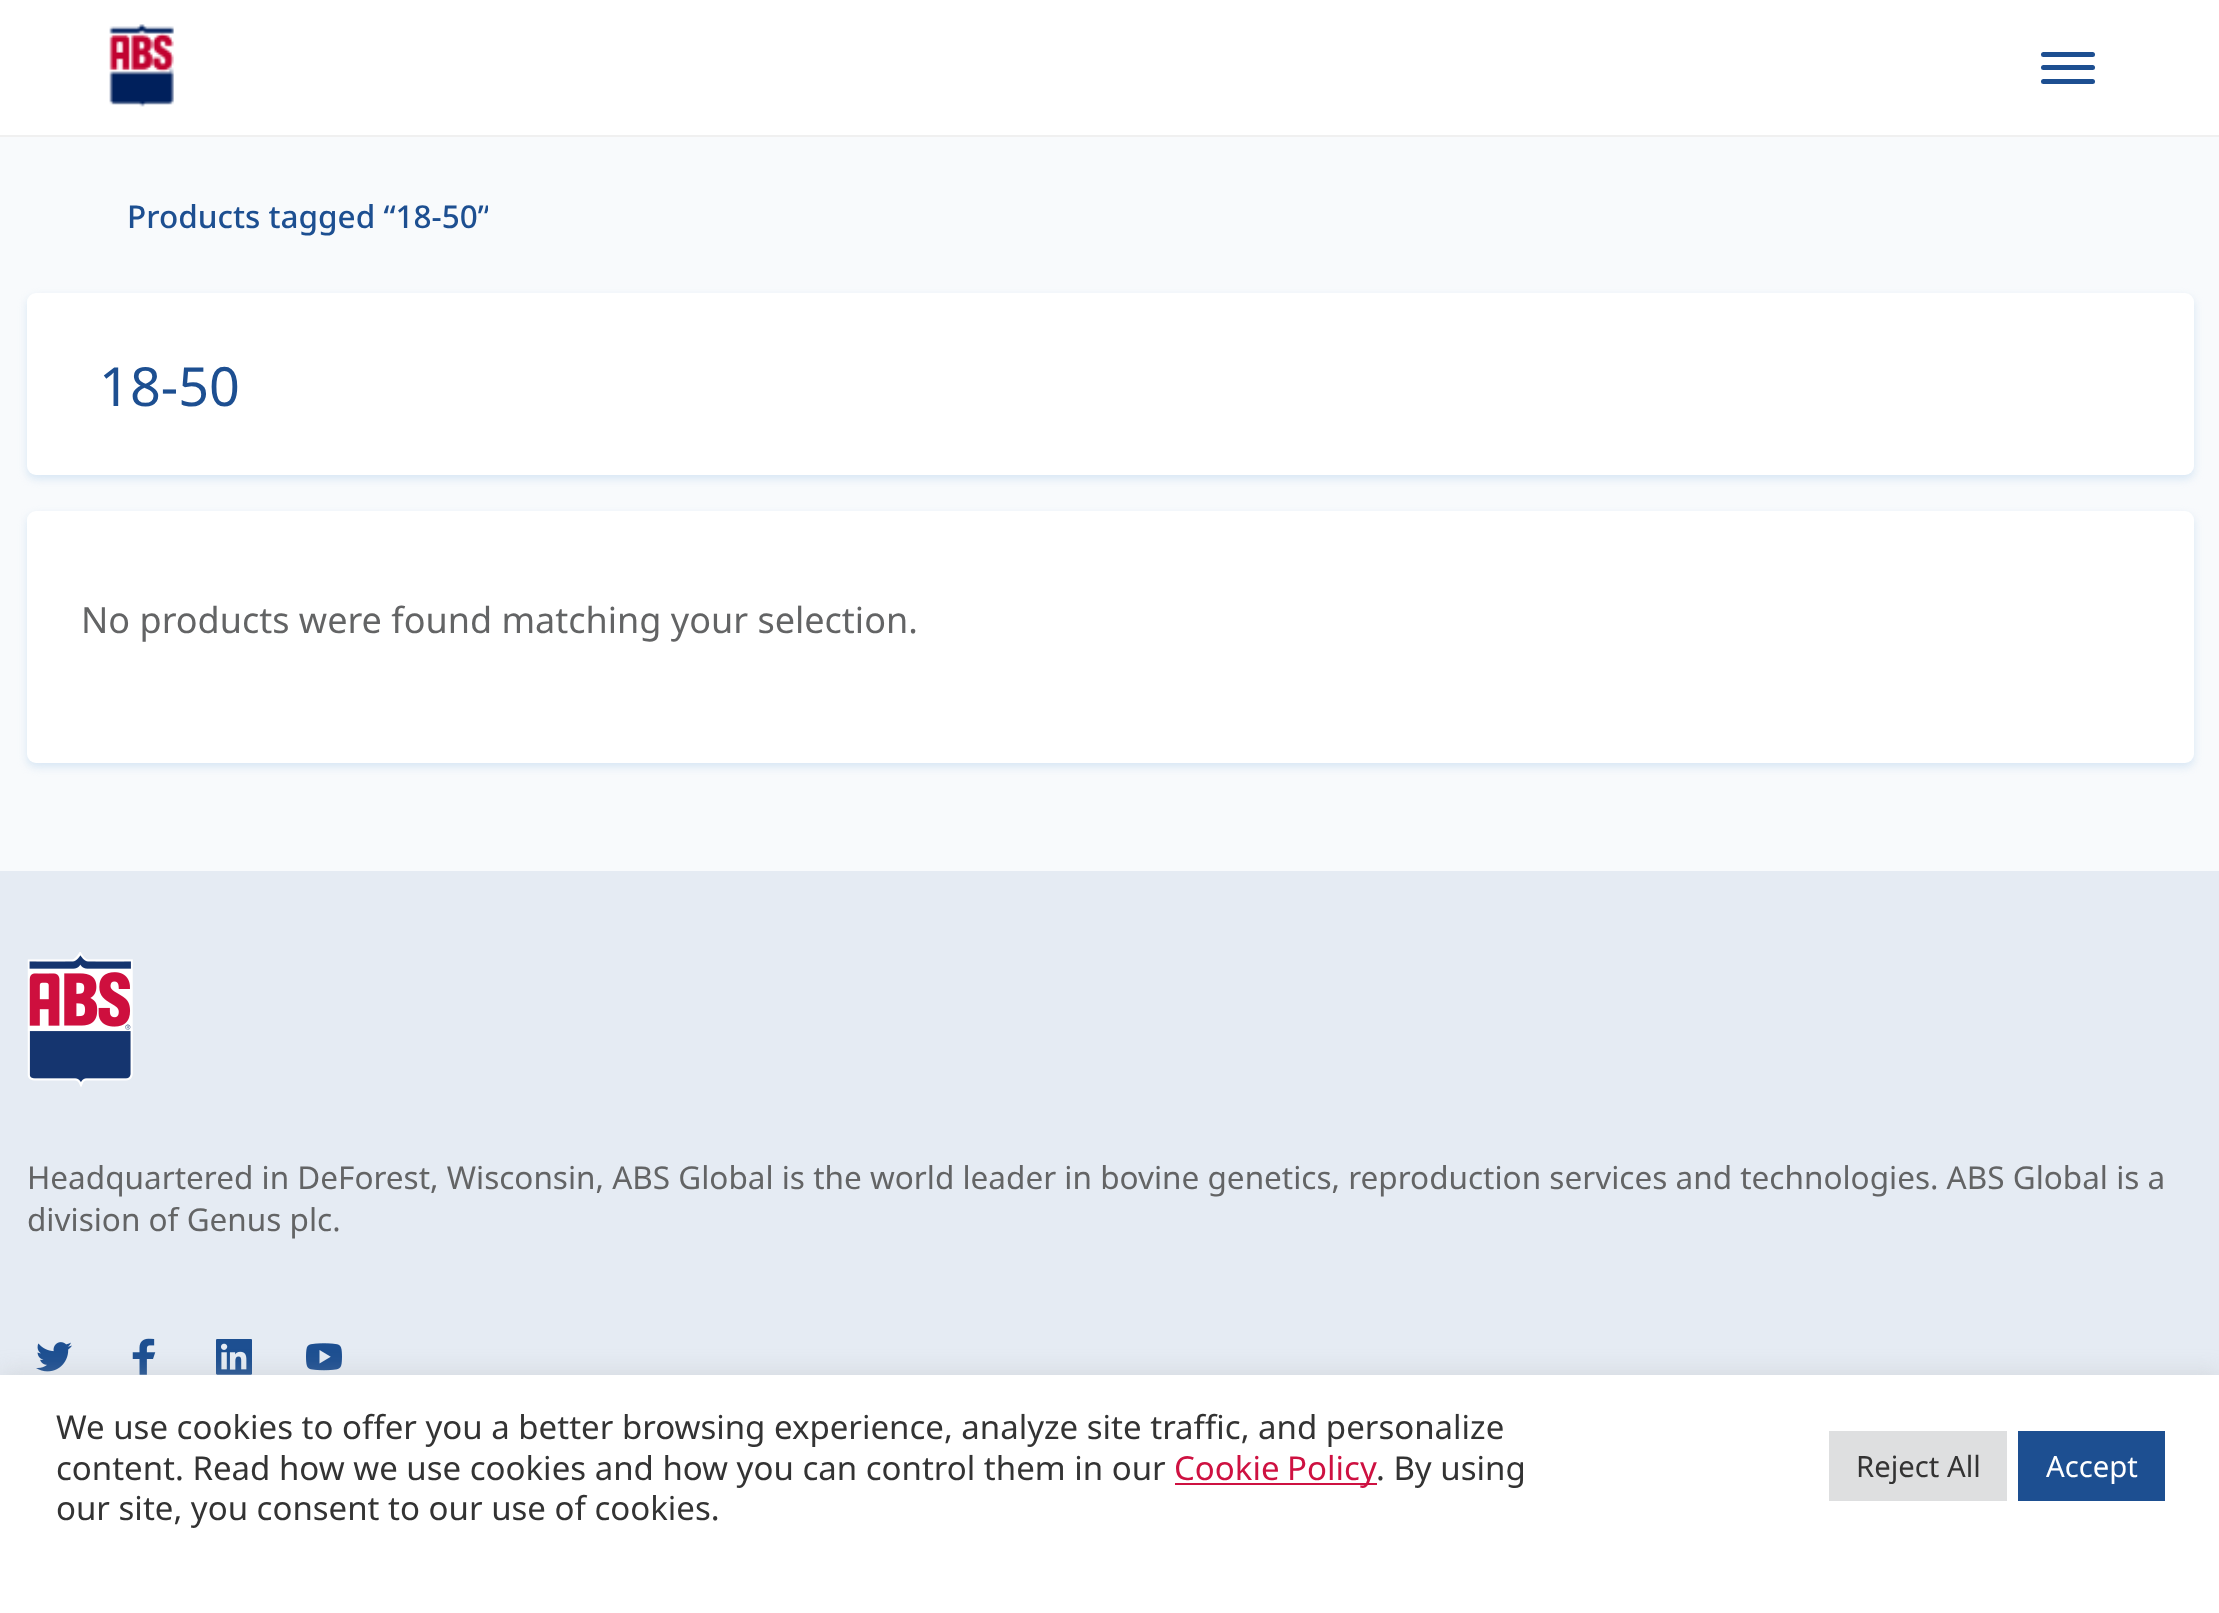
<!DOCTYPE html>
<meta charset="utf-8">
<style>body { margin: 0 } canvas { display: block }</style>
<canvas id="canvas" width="2219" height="1613"></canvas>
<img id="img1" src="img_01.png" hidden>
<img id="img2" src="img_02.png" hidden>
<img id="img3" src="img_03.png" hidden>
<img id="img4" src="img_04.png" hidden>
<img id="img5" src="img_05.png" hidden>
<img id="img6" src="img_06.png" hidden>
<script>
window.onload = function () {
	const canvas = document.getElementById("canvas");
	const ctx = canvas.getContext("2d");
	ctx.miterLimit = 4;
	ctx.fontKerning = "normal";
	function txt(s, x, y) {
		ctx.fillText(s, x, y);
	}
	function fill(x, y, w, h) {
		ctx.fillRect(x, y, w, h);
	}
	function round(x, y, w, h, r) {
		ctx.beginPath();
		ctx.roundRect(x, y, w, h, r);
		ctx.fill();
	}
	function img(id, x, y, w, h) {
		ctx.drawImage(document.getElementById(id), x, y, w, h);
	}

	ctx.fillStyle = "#F8FAFC";
	fill(0, 0, 2219, 1613);
	ctx.fillStyle = "#FFFFFF";
	fill(0, 0, 2219, 135);
	ctx.fillStyle = "#F0F0F0";
	fill(0, 135, 2219, 2);
	img("img1", 109, 24, 65, 83);
	ctx.fillStyle = "#1D4F91";
	round(2041, 52, 54, 5, 2.5);
	round(2041, 65, 54, 5, 2.5);
	round(2041, 79, 54, 5, 2.5);
	ctx.fillStyle = "#D7E6F4";
	ctx.filter = "blur(4.5px)";
	ctx.beginPath();
	ctx.roundRect(27, 297, 2167, 182, 9);
	ctx.fill();
	ctx.filter = "none";
	ctx.fillStyle = "#FFFFFF";
	round(27, 293, 2167, 182, 9);
	ctx.fillStyle = "#D7E6F4";
	ctx.filter = "blur(4.5px)";
	ctx.beginPath();
	ctx.roundRect(27, 515, 2167, 252, 9);
	ctx.fill();
	ctx.filter = "none";
	ctx.fillStyle = "#FFFFFF";
	round(27, 511, 2167, 252, 9);
	ctx.fillStyle = "#E5EBF3";
	fill(0, 871, 2219, 504);
	img("img2", 27, 952, 106, 135);
	img("img3", 36, 1342, 36, 30);
	img("img4", 132, 1338, 24, 37);
	img("img5", 216, 1339, 36, 36);
	img("img6", 306, 1343, 36, 28);
	ctx.fillStyle = "rgba(172, 171, 171, 0.3)";
	ctx.filter = "blur(11px)";
	ctx.beginPath();
	ctx.rect(0, 1373, 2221, 238);
	ctx.fill();
	ctx.filter = "none";
	ctx.fillStyle = "#FFFFFF";
	fill(0, 1375, 2219, 238);
	ctx.fillStyle = "#CE1141";
	fill(1175, 1483, 202, 2);
	ctx.fillStyle = "#DEDFE0";
	fill(1829, 1431, 178, 70);
	ctx.fillStyle = "#1D4F91";
	fill(2018, 1431, 147, 70);
	ctx.save();
	ctx.beginPath();
	ctx.rect(126, 191, 362, 48);
	ctx.clip();
	ctx.font = "500 31.5px Noto Sans";
	txt("Products tagged “18-50”", 127, 228);
	ctx.restore();
	ctx.font = "54px Noto Sans";
	txt("18-50", 99, 406);
	ctx.font = "36px Noto Sans";
	ctx.fillStyle = "#636465";
	txt("No products were found matching your selection.", 81, 633);
	ctx.font = "31.5px Noto Sans";
	txt("Headquartered in DeForest, Wisconsin, ABS Global is the world leader in bovine genetics, reproduction services and technologies. ABS Global is a", 27, 1189);
	txt("division of Genus plc.", 27, 1231);
	ctx.font = "33px Noto Sans";
	ctx.fillStyle = "#333333";
	txt("We use cookies to offer you a better browsing experience, analyze site traffic, and personalize", 56, 1439);
	txt("content. Read how we use cookies and how you can control them in our", 56, 1480);
	ctx.wordSpacing = "-1px";
	ctx.fillStyle = "#CE1141";
	txt("Cookie Policy", 1174, 1480);
	ctx.wordSpacing = "0px";
	ctx.fillStyle = "#333333";
	txt(". By using", 1376, 1480);
	txt("our site, you consent to our use of cookies.", 56, 1520);
	ctx.font = "29.25px Noto Sans";
	txt("Reject All", 1856, 1477);
	ctx.fillStyle = "#FFFFFF";
	txt("Accept", 2046, 1477);
};
</script>
